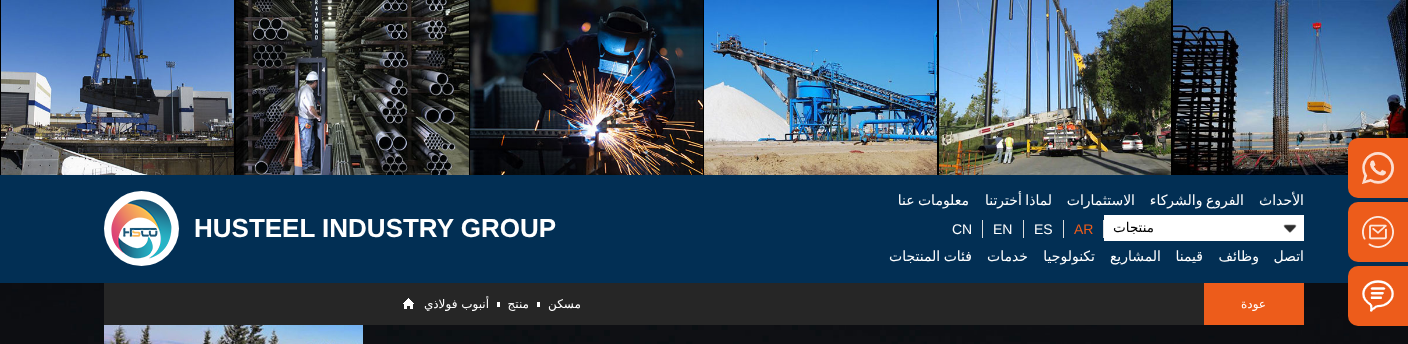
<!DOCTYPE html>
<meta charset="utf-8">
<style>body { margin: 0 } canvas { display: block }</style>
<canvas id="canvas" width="1408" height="344"></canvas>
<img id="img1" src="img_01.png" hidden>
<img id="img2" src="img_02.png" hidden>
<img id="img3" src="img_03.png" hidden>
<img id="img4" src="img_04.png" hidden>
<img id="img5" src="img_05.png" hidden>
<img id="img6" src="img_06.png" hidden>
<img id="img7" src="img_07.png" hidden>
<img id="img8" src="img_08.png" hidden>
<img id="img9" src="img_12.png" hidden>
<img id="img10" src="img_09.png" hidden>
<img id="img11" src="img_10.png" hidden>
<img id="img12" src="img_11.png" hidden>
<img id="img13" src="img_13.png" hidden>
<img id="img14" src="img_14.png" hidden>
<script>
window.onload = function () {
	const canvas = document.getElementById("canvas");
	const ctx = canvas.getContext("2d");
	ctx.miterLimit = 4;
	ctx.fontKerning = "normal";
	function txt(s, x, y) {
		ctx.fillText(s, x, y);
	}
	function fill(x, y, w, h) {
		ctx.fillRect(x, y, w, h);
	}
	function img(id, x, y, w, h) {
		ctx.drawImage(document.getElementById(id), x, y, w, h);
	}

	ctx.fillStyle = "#000000";
	fill(0, 0, 1408, 344);
	img("img1", 1173, 0, 233, 175);
	img("img2", 939, 0, 232, 175);
	img("img3", 704, 0, 233, 175);
	img("img4", 470, 0, 233, 175);
	img("img5", 236, 0, 233, 175);
	img("img6", 1, 0, 233, 175);
	ctx.fillStyle = "#022F54";
	fill(0, 175, 1408, 108);
	ctx.fillStyle = "#ED5C1B";
	ctx.beginPath();
	ctx.roundRect(1348, 138, 60, 60, [10, 0, 0, 10]);
	ctx.fill();
	img("img7", 1362, 152, 32, 32);
	ctx.beginPath();
	ctx.roundRect(1348, 202, 60, 60, [10, 0, 0, 10]);
	ctx.fill();
	img("img8", 1362, 216, 32, 32);
	img("img9", 0, 283, 1408, 61);
	ctx.beginPath();
	ctx.roundRect(1348, 266, 60, 60, [10, 0, 0, 10]);
	ctx.fill();
	img("img10", 1362, 280, 32, 32);
	ctx.fillStyle = "#FFFFFF";
	fill(1104, 215, 200, 26);
	img("img11", 1283, 224, 14, 9);
	ctx.fillStyle = "#DDDDDD";
	fill(1103, 220, 1, 18);
	fill(1063, 220, 1, 18);
	fill(1023, 220, 1, 18);
	fill(982, 220, 1, 18);
	ctx.fillStyle = "#FFFFFF";
	ctx.beginPath();
	ctx.arc(141.5, 228.5, 37.5, 0, Math.PI * 2);
	ctx.fill();
	img("img12", 111, 199, 61, 60);
	ctx.fillStyle = "#262626";
	fill(104, 283, 1100, 42);
	ctx.fillStyle = "#ED5C1B";
	fill(1204, 283, 100, 42);
	ctx.fillStyle = "#FFFFFF";
	fill(537, 302, 3, 5);
	fill(497, 302, 3, 5);
	img("img13", 403, 298, 11, 11);
	img("img14", 104, 325, 259, 19);
	ctx.direction = "rtl";
	ctx.font = "14px DejaVu Sans";
	txt("الأحداث", 1304, 205);
	ctx.wordSpacing = "-1px";
	txt("الفروع والشركاء", 1244, 205);
	ctx.wordSpacing = "0px";
	txt("الاستثمارات", 1135, 205);
	ctx.wordSpacing = "-1px";
	txt("لماذا أخترتنا", 1052, 205);
	txt("معلومات عنا", 969, 205);
	ctx.wordSpacing = "0px";
	ctx.font = "13.5px DejaVu Sans";
	ctx.fillStyle = "#000000";
	txt("منتجات", 1154, 232);
	ctx.direction = "ltr";
	ctx.font = "14px Liberation Sans";
	ctx.fillStyle = "#ED5C1B";
	txt("AR", 1074, 234);
	ctx.fillStyle = "#FFFFFF";
	txt("ES", 1034, 234);
	txt("EN", 993, 234);
	txt("CN", 952, 234);
	ctx.direction = "rtl";
	ctx.font = "14px DejaVu Sans";
	txt("اتصل", 1304, 261);
	txt("وظائف", 1259, 261);
	txt("قيمنا", 1203, 261);
	txt("المشاريع", 1161, 261);
	txt("تكنولوجيا", 1095, 261);
	txt("خدمات", 1028, 261);
	ctx.wordSpacing = "-1px";
	txt("فئات المنتجات", 972, 261);
	ctx.wordSpacing = "0px";
	ctx.direction = "ltr";
	ctx.font = "bold 26px Liberation Sans";
	txt("HUSTEEL INDUSTRY GROUP", 194, 237);
	ctx.direction = "rtl";
	ctx.font = "12px DejaVu Sans";
	txt("عودة", 1266, 308);
	txt("مسكن", 581, 308);
	txt("منتج", 529, 308);
	txt("أنبوب فولاذي", 489, 308);
};
</script>
